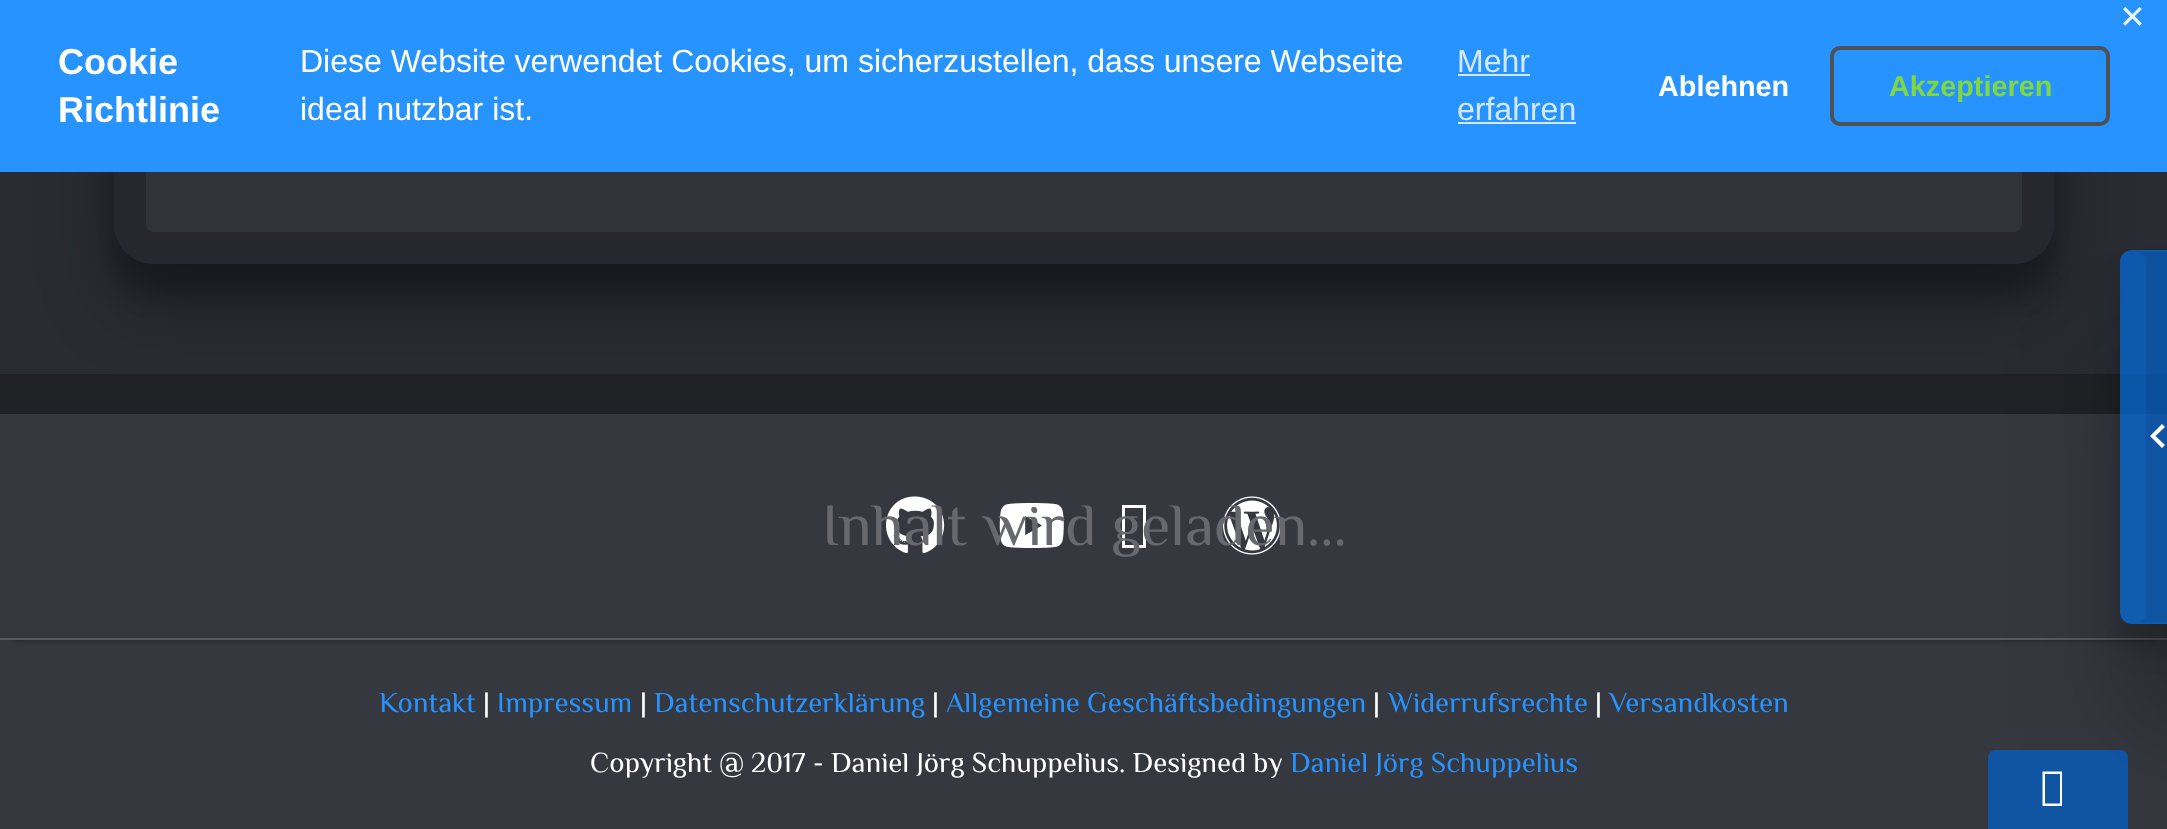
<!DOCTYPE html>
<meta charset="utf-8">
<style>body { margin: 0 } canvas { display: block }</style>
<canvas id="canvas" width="2167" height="829"></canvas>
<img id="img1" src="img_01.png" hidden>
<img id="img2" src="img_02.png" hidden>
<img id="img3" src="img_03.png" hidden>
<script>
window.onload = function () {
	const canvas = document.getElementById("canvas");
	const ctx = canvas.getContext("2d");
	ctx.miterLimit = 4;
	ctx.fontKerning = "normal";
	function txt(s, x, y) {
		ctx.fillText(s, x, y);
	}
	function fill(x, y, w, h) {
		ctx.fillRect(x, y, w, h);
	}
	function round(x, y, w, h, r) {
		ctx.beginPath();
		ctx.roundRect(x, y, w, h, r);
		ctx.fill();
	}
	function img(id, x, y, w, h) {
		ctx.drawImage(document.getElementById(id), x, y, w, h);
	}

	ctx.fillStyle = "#2A2C33";
	fill(0, 0, 2167, 829);
	ctx.save();
	ctx.beginPath();
	ctx.moveTo(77, 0);
	ctx.lineTo(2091, 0);
	ctx.lineTo(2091, 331);
	ctx.lineTo(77, 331);
	ctx.closePath();
	ctx.moveTo(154, -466);
	ctx.lineTo(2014, -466);
	ctx.bezierCurveTo(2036, -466, 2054, -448, 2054, -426);
	ctx.lineTo(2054, 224);
	ctx.bezierCurveTo(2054, 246, 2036, 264, 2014, 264);
	ctx.lineTo(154, 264);
	ctx.bezierCurveTo(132, 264, 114, 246, 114, 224);
	ctx.lineTo(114, -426);
	ctx.bezierCurveTo(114, -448, 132, -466, 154, -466);
	ctx.closePath();
	ctx.clip("evenodd");
	ctx.fillStyle = "rgba(0, 0, 0, 0.22)";
	ctx.filter = "blur(12px)";
	ctx.beginPath();
	ctx.roundRect(114, -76, 1940, 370, 40);
	ctx.fill();
	ctx.filter = "none";
	ctx.restore();
	ctx.save();
	ctx.beginPath();
	ctx.moveTo(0, 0);
	ctx.lineTo(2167, 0);
	ctx.lineTo(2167, 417);
	ctx.lineTo(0, 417);
	ctx.closePath();
	ctx.moveTo(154, -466);
	ctx.lineTo(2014, -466);
	ctx.bezierCurveTo(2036, -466, 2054, -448, 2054, -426);
	ctx.lineTo(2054, 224);
	ctx.bezierCurveTo(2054, 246, 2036, 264, 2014, 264);
	ctx.lineTo(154, 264);
	ctx.bezierCurveTo(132, 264, 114, 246, 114, 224);
	ctx.lineTo(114, -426);
	ctx.bezierCurveTo(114, -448, 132, -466, 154, -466);
	ctx.closePath();
	ctx.clip("evenodd");
	ctx.fillStyle = "rgba(0, 0, 0, 0.3)";
	ctx.filter = "blur(38px)";
	ctx.beginPath();
	ctx.roundRect(114, -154, 1940, 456, 40);
	ctx.fill();
	ctx.filter = "none";
	ctx.restore();
	ctx.fillStyle = "rgba(55, 57, 65, 0.6)";
	round(114, -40, 1940, 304, 40);
	ctx.beginPath();
	ctx.roundRect(130, -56, 1908, 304, 24);
	ctx.strokeStyle = "rgba(0, 0, 0, 0.2)";
	ctx.lineWidth = 32;
	ctx.stroke();
	ctx.fillStyle = "#2793FF";
	fill(0, 0, 2167, 172);
	ctx.fillStyle = "#D4E9FF";
	fill(1458, 74, 72, 2);
	fill(1458, 122, 118, 2);
	ctx.beginPath();
	ctx.roundRect(1832, 48, 276, 76, 8);
	ctx.strokeStyle = "#4F5054";
	ctx.lineWidth = 4;
	ctx.stroke();
	ctx.fillStyle = "#363840";
	fill(0, 414, 2167, 415);
	ctx.fillStyle = "#202226";
	fill(0, 374, 2167, 40);
	ctx.save();
	ctx.beginPath();
	ctx.rect(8, 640, 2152, 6);
	ctx.clip();
	ctx.fillStyle = "#2A2C33";
	ctx.filter = "blur(2px)";
	ctx.beginPath();
	ctx.rect(12, 440, 2144, 202);
	ctx.fill();
	ctx.filter = "none";
	ctx.restore();
	ctx.fillStyle = "#575963";
	fill(0, 638, 2167, 2);
	ctx.save();
	ctx.beginPath();
	ctx.moveTo(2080, 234);
	ctx.lineTo(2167, 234);
	ctx.lineTo(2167, 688);
	ctx.lineTo(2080, 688);
	ctx.closePath();
	ctx.moveTo(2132, 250);
	ctx.lineTo(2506, 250);
	ctx.bezierCurveTo(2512.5, 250, 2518, 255.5, 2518, 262);
	ctx.lineTo(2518, 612);
	ctx.bezierCurveTo(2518, 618.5, 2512.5, 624, 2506, 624);
	ctx.lineTo(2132, 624);
	ctx.bezierCurveTo(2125.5, 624, 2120, 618.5, 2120, 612);
	ctx.lineTo(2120, 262);
	ctx.bezierCurveTo(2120, 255.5, 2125.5, 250, 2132, 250);
	ctx.closePath();
	ctx.clip("evenodd");
	ctx.fillStyle = "rgba(0, 0, 0, 0.17)";
	ctx.filter = "blur(13px)";
	ctx.beginPath();
	ctx.roundRect(2120, 274, 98, 374, 12);
	ctx.fill();
	ctx.filter = "none";
	ctx.restore();
	ctx.save();
	ctx.beginPath();
	ctx.moveTo(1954, 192);
	ctx.lineTo(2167, 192);
	ctx.lineTo(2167, 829);
	ctx.lineTo(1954, 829);
	ctx.closePath();
	ctx.moveTo(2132, 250);
	ctx.lineTo(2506, 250);
	ctx.bezierCurveTo(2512.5, 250, 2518, 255.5, 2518, 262);
	ctx.lineTo(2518, 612);
	ctx.bezierCurveTo(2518, 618.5, 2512.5, 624, 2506, 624);
	ctx.lineTo(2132, 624);
	ctx.bezierCurveTo(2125.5, 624, 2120, 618.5, 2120, 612);
	ctx.lineTo(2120, 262);
	ctx.bezierCurveTo(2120, 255.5, 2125.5, 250, 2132, 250);
	ctx.closePath();
	ctx.clip("evenodd");
	ctx.fillStyle = "rgba(0, 0, 0, 0.25)";
	ctx.filter = "blur(55px)";
	ctx.beginPath();
	ctx.roundRect(2120, 358, 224, 374, 12);
	ctx.fill();
	ctx.filter = "none";
	ctx.restore();
	ctx.fillStyle = "rgba(0, 99, 207, 0.7)";
	round(2120, 250, 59, 374, 12);
	ctx.beginPath();
	ctx.roundRect(2121, 251, 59, 372, 11);
	ctx.strokeStyle = "rgba(23, 131, 239, 0.15)";
	ctx.lineWidth = 2;
	ctx.stroke();
	ctx.fillStyle = "rgba(23, 131, 239, 0.15)";
	round(2122, 252, 24, 370, 8);
	ctx.fillStyle = "#FFFFFF";
	ctx.beginPath();
	ctx.moveTo(2165, 427);
	ctx.lineTo(2155.5, 436);
	ctx.lineTo(2165, 445);
	ctx.lineTo(2162, 448);
	ctx.lineTo(2150, 436);
	ctx.lineTo(2162, 424);
	ctx.closePath();
	ctx.fill();
	img("img1", 886, 496, 59, 57);
	img("img2", 999, 503, 65, 45);
	ctx.beginPath();
	ctx.moveTo(1122, 548);
	ctx.lineTo(1122, 505);
	ctx.lineTo(1146, 505);
	ctx.lineTo(1146, 548);
	ctx.closePath();
	ctx.moveTo(1125, 545);
	ctx.lineTo(1143, 545);
	ctx.lineTo(1143, 508);
	ctx.lineTo(1125, 508);
	ctx.closePath();
	ctx.fill();
	img("img3", 1222, 496, 60, 59);
	ctx.fillStyle = "rgba(0, 99, 207, 0.7)";
	ctx.beginPath();
	ctx.moveTo(1996, 750);
	ctx.lineTo(2120, 750);
	ctx.bezierCurveTo(2124.5, 750, 2128, 753.5, 2128, 758);
	ctx.lineTo(2128, 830);
	ctx.lineTo(1988, 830);
	ctx.lineTo(1988, 758);
	ctx.bezierCurveTo(1988, 753.5, 1991.5, 750, 1996, 750);
	ctx.closePath();
	ctx.fill();
	ctx.fillStyle = "#FFFFFF";
	ctx.beginPath();
	ctx.moveTo(2042.5, 806);
	ctx.lineTo(2042.5, 771.5);
	ctx.lineTo(2062, 771.5);
	ctx.lineTo(2062, 806);
	ctx.closePath();
	ctx.moveTo(2045, 803.5);
	ctx.lineTo(2060, 803.5);
	ctx.lineTo(2060, 774);
	ctx.lineTo(2045, 774);
	ctx.closePath();
	ctx.fill();
	ctx.font = "32px DejaVu Sans";
	ctx.fillStyle = "#E9F4FF";
	txt("✕", 2119, 28);
	ctx.font = "bold 36px Liberation Sans";
	ctx.fillStyle = "#FFFFFF";
	txt("Cookie", 58, 74);
	txt("Richtlinie", 58, 122);
	ctx.font = "32px Liberation Sans";
	txt("Diese Website verwendet Cookies, um sicherzustellen, dass unsere Webseite", 300, 72);
	txt("ideal nutzbar ist.", 300, 120);
	ctx.fillStyle = "#D4E9FF";
	txt("Mehr", 1457, 72);
	txt("erfahren", 1457, 120);
	ctx.font = "bold 28.8px Liberation Sans";
	ctx.fillStyle = "#FFFFFF";
	txt("Ablehnen", 1658, 96);
	ctx.fillStyle = "#81D742";
	txt("Akzeptieren", 1889, 96);
	ctx.font = "60px El Messiri";
	ctx.fillStyle = "#67696F";
	txt("Inhalt wird geladen...", 822, 545);
	ctx.font = "28.8px El Messiri";
	ctx.fillStyle = "#2793FF";
	txt("Kontakt", 379, 712);
	ctx.fillStyle = "#FFFFFF";
	txt("|", 483, 712);
	ctx.fillStyle = "#2793FF";
	txt("Impressum", 497, 712);
	ctx.fillStyle = "#FFFFFF";
	txt("|", 640, 712);
	ctx.fillStyle = "#2793FF";
	txt("Datenschutzerklärung", 654, 712);
	ctx.fillStyle = "#FFFFFF";
	txt("|", 932, 712);
	ctx.fillStyle = "#2793FF";
	txt("Allgemeine Geschäftsbedingungen", 946, 712);
	ctx.fillStyle = "#FFFFFF";
	txt("|", 1373, 712);
	ctx.fillStyle = "#2793FF";
	txt("Widerrufsrechte", 1388, 712);
	ctx.fillStyle = "#FFFFFF";
	txt("|", 1595, 712);
	ctx.fillStyle = "#2793FF";
	txt("Versandkosten", 1609, 712);
	ctx.fillStyle = "#FFFFFF";
	txt("Copyright @ 2017 - Daniel Jörg Schuppelius. Designed by", 590, 772);
	ctx.fillStyle = "#2793FF";
	txt("Daniel Jörg Schuppelius", 1290, 772);
};
</script>
